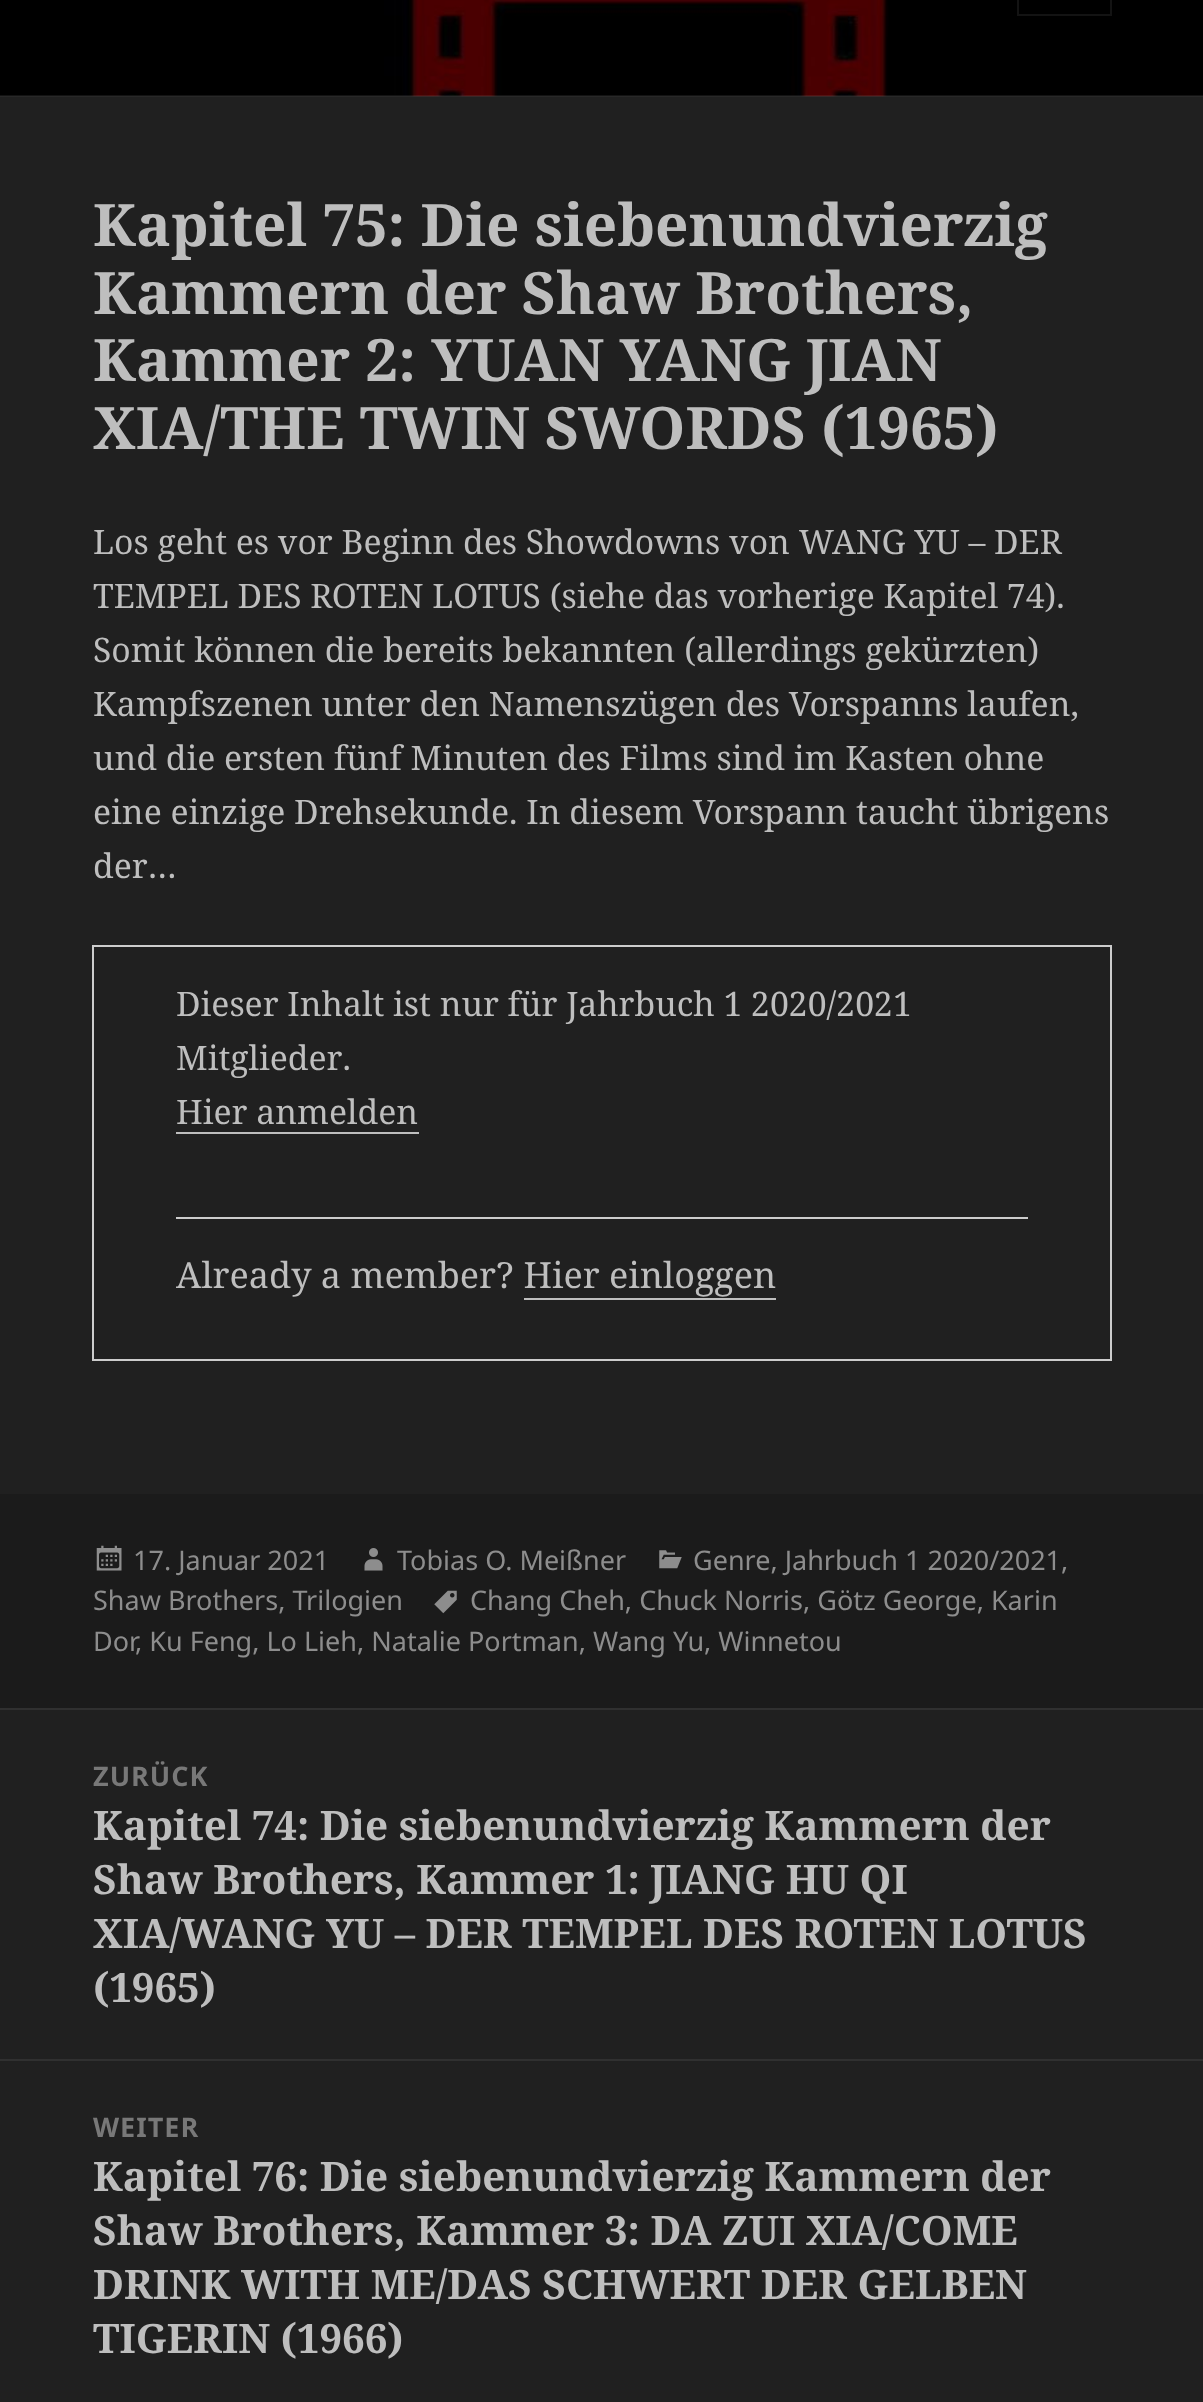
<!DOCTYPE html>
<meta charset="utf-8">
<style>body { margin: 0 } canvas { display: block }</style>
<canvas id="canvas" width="1203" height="2402"></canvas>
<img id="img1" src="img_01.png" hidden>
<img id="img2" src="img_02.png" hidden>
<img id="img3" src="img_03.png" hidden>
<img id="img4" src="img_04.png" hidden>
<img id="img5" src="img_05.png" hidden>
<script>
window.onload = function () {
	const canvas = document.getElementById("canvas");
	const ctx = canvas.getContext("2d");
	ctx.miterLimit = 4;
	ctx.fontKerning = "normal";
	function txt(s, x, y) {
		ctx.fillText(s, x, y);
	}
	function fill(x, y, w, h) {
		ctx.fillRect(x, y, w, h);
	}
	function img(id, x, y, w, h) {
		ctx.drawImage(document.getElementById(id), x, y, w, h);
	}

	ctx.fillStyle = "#202020";
	fill(0, 0, 1203, 2402);
	img("img1", 0, 0, 1203, 97);
	ctx.fillStyle = "rgba(190, 190, 190, 0.1)";
	fill(0, 95, 1203, 2);
	ctx.strokeStyle = "#131313";
	ctx.lineWidth = 2;
	ctx.strokeRect(1018, -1, 93, 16);
	ctx.strokeStyle = "#CCCCCC";
	ctx.strokeRect(93, 946, 1018, 414);
	ctx.fillStyle = "#BEBEBE";
	fill(176, 1132, 243, 2);
	ctx.fillStyle = "#CCCCCC";
	fill(176, 1217, 852, 2);
	ctx.fillStyle = "#BEBEBE";
	fill(524, 1298, 252, 2);
	ctx.fillStyle = "#1B1B1B";
	fill(0, 1494, 1203, 214);
	img("img2", 659, 1550, 23, 19);
	img("img3", 96, 1545, 26, 26);
	img("img4", 364, 1548, 19, 23);
	img("img5", 434, 1590, 23, 24);
	ctx.fillStyle = "#303030";
	fill(0, 1708, 1203, 2);
	fill(0, 2059, 1203, 2);
	ctx.font = "bold 58.5px Noto Serif";
	ctx.fillStyle = "#BEBEBE";
	txt("Kapitel 75: Die siebenundvierzig", 93, 246);
	txt("Kammern der Shaw Brothers,", 93, 314);
	txt("Kammer 2: YUAN YANG JIAN", 93, 381);
	txt("XIA/THE TWIN SWORDS (1965)", 93, 449);
	ctx.font = "33.75px Noto Serif";
	txt("Los geht es vor Beginn des Showdowns von WANG YU – DER", 93, 554);
	txt("TEMPEL DES ROTEN LOTUS (siehe das vorherige Kapitel 74).", 93, 608);
	txt("Somit können die bereits bekannten (allerdings gekürzten)", 93, 662);
	txt("Kampfszenen unter den Namenszügen des Vorspanns laufen,", 93, 716);
	txt("und die ersten fünf Minuten des Films sind im Kasten ohne", 93, 770);
	txt("eine einzige Drehsekunde. In diesem Vorspann taucht übrigens", 93, 824);
	txt("der…", 93, 878);
	txt("Dieser Inhalt ist nur für Jahrbuch 1 2020/2021", 176, 1016);
	txt("Mitglieder.", 176, 1070);
	txt("Hier anmelden", 176, 1124);
	ctx.font = "36px Noto Serif";
	txt("Already a member? Hier einloggen", 176, 1288);
	ctx.font = "27px Noto Sans";
	ctx.fillStyle = "#8D8D8D";
	txt("Genre, Jahrbuch 1 2020/2021,", 693, 1570);
	txt("Shaw Brothers, Trilogien", 93, 1610);
	txt("17. Januar 2021", 133, 1570);
	txt("Tobias O. Meißner", 397, 1570);
	txt("Chang Cheh, Chuck Norris, Götz George, Karin", 470, 1610);
	txt("Dor", 93, 1651);
	txt(", Ku Feng, Lo Lieh, Natalie Portman, Wang Yu, Winnetou", 135, 1651);
	ctx.letterSpacing = "1px";
	ctx.font = "bold 27px Noto Sans";
	ctx.fillStyle = "#787878";
	txt("ZURÜCK", 93, 1786);
	ctx.letterSpacing = "0px";
	ctx.font = "bold 40.5px Noto Serif";
	ctx.fillStyle = "#BEBEBE";
	txt("Kapitel 74: Die siebenundvierzig Kammern der", 93, 1840);
	txt("Shaw Brothers, Kammer 1: JIANG HU QI", 93, 1894);
	txt("XIA/WANG YU – DER TEMPEL DES ROTEN LOTUS", 93, 1948);
	txt("(1965)", 93, 2002);
	ctx.letterSpacing = "1px";
	ctx.font = "bold 27px Noto Sans";
	ctx.fillStyle = "#787878";
	txt("WEITER", 93, 2137);
	ctx.letterSpacing = "0px";
	ctx.font = "bold 40.5px Noto Serif";
	ctx.fillStyle = "#BEBEBE";
	txt("Kapitel 76: Die siebenundvierzig Kammern der", 93, 2191);
	txt("Shaw Brothers, Kammer 3: DA ZUI XIA/COME", 93, 2245);
	txt("DRINK WITH ME/DAS SCHWERT DER GELBEN", 93, 2299);
	txt("TIGERIN (1966)", 93, 2353);
};
</script>
